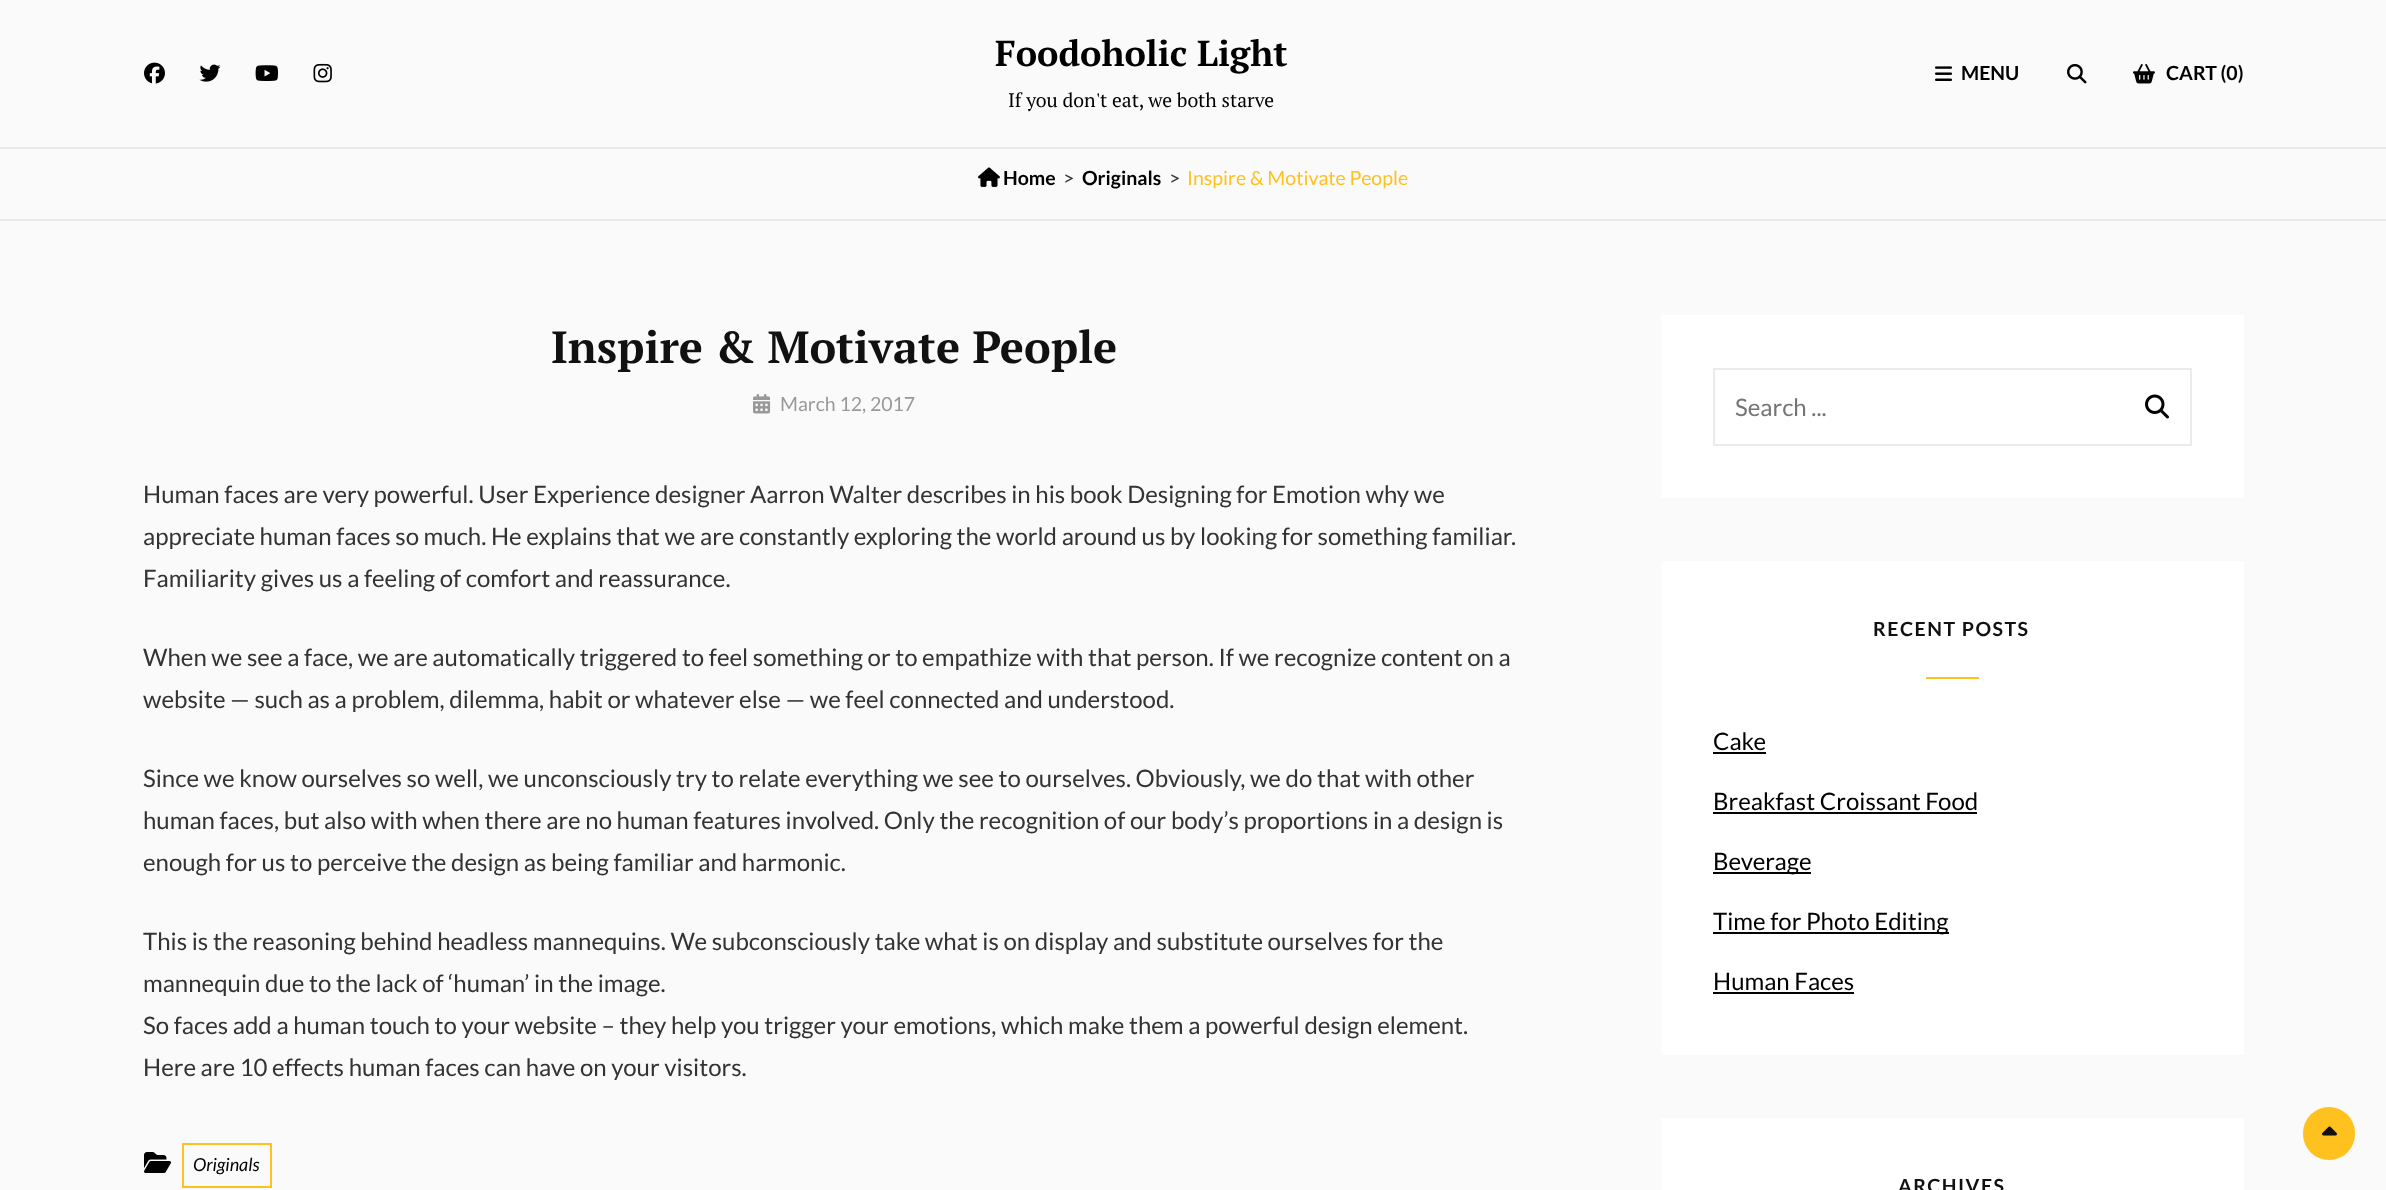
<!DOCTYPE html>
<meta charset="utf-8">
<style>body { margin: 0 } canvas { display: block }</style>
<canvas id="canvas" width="2386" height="1190"></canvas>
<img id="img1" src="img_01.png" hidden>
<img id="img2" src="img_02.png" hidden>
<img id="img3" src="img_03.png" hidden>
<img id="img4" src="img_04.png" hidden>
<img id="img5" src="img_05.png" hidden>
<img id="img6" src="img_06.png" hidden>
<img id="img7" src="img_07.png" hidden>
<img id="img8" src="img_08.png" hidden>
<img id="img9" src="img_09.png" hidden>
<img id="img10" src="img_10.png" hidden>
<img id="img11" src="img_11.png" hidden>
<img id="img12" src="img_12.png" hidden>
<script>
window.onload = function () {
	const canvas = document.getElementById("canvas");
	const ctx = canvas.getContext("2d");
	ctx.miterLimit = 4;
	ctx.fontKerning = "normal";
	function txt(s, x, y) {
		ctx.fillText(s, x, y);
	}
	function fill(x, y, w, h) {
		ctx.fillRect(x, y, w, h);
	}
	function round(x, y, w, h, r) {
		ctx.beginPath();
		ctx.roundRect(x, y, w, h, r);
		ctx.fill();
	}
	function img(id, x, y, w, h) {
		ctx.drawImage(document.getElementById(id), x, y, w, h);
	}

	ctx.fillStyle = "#FAFAFA";
	fill(0, 0, 2386, 1190);
	ctx.fillStyle = "#EBEBEB";
	fill(0, 147, 2386, 2);
	img("img1", 144, 62, 21, 22);
	img("img2", 199, 64, 22, 18);
	img("img3", 255, 65, 23, 16);
	img("img4", 313, 63, 19, 20);
	img("img5", 1935, 66, 17, 15);
	img("img6", 2067, 63, 20, 21);
	img("img7", 2133, 64, 22, 20);
	img("img8", 978, 167, 22, 20);
	fill(0, 219, 2386, 2);
	img("img9", 753, 394, 18, 20);
	img("img10", 144, 1152, 27, 21);
	ctx.strokeStyle = "#FFC11D";
	ctx.lineWidth = 2;
	ctx.strokeRect(183, 1144, 88, 43);
	ctx.fillStyle = "#FFFFFF";
	fill(1661, 315, 583, 183);
	ctx.strokeStyle = "#EBEBEB";
	ctx.strokeRect(1714, 369, 477, 76);
	img("img11", 2145, 394, 24, 25);
	fill(1661, 561, 583, 494);
	ctx.fillStyle = "#FFC11D";
	fill(1926, 677, 53, 2);
	ctx.fillStyle = "#000000";
	fill(1713, 752, 53, 2);
	fill(1713, 812, 264, 2);
	fill(1713, 872, 98, 2);
	fill(1713, 932, 236, 2);
	fill(1713, 992, 141, 2);
	ctx.fillStyle = "#FFFFFF";
	fill(1661, 1118, 583, 72);
	ctx.fillStyle = "#FFC11D";
	round(2303, 1107, 52, 53, 26);
	img("img12", 2322, 1126, 15, 10);
	ctx.font = "bold 36px PT Serif";
	ctx.fillStyle = "#000000";
	txt("Foodoholic Light", 995, 66);
	ctx.font = "19.5px PT Serif";
	txt("If you don't eat, we both starve", 1008, 107);
	ctx.font = "bold 19.5px Lato";
	txt("MENU", 1961, 80);
	txt("CART (0)", 2166, 80);
	txt("Home", 1003, 185);
	ctx.font = "19.5px Lato";
	ctx.fillStyle = "#333333";
	txt(">", 1063, 185);
	ctx.font = "bold 19.5px Lato";
	ctx.fillStyle = "#000000";
	txt("Originals", 1082, 185);
	ctx.font = "19.5px Lato";
	ctx.fillStyle = "#333333";
	txt(">", 1169, 185);
	ctx.fillStyle = "#FFC11D";
	txt("Inspire & Motivate People", 1187, 185);
	ctx.font = "bold 45px PT Serif";
	ctx.fillStyle = "#111111";
	txt("Inspire & Motivate People", 551, 363);
	ctx.font = "19.5px Lato";
	ctx.fillStyle = "#999999";
	txt("March 12, 2017", 780, 411);
	ctx.font = "24px Lato";
	ctx.fillStyle = "#333333";
	txt("Human faces are very powerful. User Experience designer Aarron Walter describes in his book Designing for Emotion why we", 143, 503);
	txt("appreciate human faces so much. He explains that we are constantly exploring the world around us by looking for something familiar.", 143, 545);
	txt("Familiarity gives us a feeling of comfort and reassurance.", 143, 587);
	txt("When we see a face, we are automatically triggered to feel something or to empathize with that person. If we recognize content on a", 143, 666);
	txt("website — such as a problem, dilemma, habit or whatever else — we feel connected and understood.", 143, 708);
	txt("Since we know ourselves so well, we unconsciously try to relate everything we see to ourselves. Obviously, we do that with other", 143, 787);
	txt("human faces, but also with when there are no human features involved. Only the recognition of our body’s proportions in a design is", 143, 829);
	txt("enough for us to perceive the design as being familiar and harmonic.", 143, 871);
	txt("This is the reasoning behind headless mannequins. We subconsciously take what is on display and substitute ourselves for the", 143, 950);
	txt("mannequin due to the lack of ‘human’ in the image.", 143, 992);
	txt("So faces add a human touch to your website – they help you trigger your emotions, which make them a powerful design element.", 143, 1034);
	txt("Here are 10 effects human faces can have on your visitors.", 143, 1076);
	ctx.font = "italic 18px Lato";
	ctx.fillStyle = "#000000";
	txt("Originals", 193, 1171);
	ctx.font = "24px Lato";
	ctx.fillStyle = "#757575";
	txt("Search ...", 1735, 416);
	ctx.letterSpacing = "1.5px";
	ctx.font = "bold 19.5px Lato";
	ctx.fillStyle = "#111111";
	txt("RECENT POSTS", 1873, 636);
	ctx.letterSpacing = "0px";
	ctx.font = "24px Lato";
	ctx.fillStyle = "#000000";
	txt("Cake", 1713, 750);
	txt("Breakfast Croissant Food", 1713, 810);
	txt("Beverage", 1713, 870);
	txt("Time for Photo Editing", 1713, 930);
	txt("Human Faces", 1713, 990);
	ctx.letterSpacing = "1.5px";
	ctx.font = "bold 19.5px Lato";
	ctx.fillStyle = "#111111";
	txt("ARCHIVES", 1898, 1193);
};
</script>
